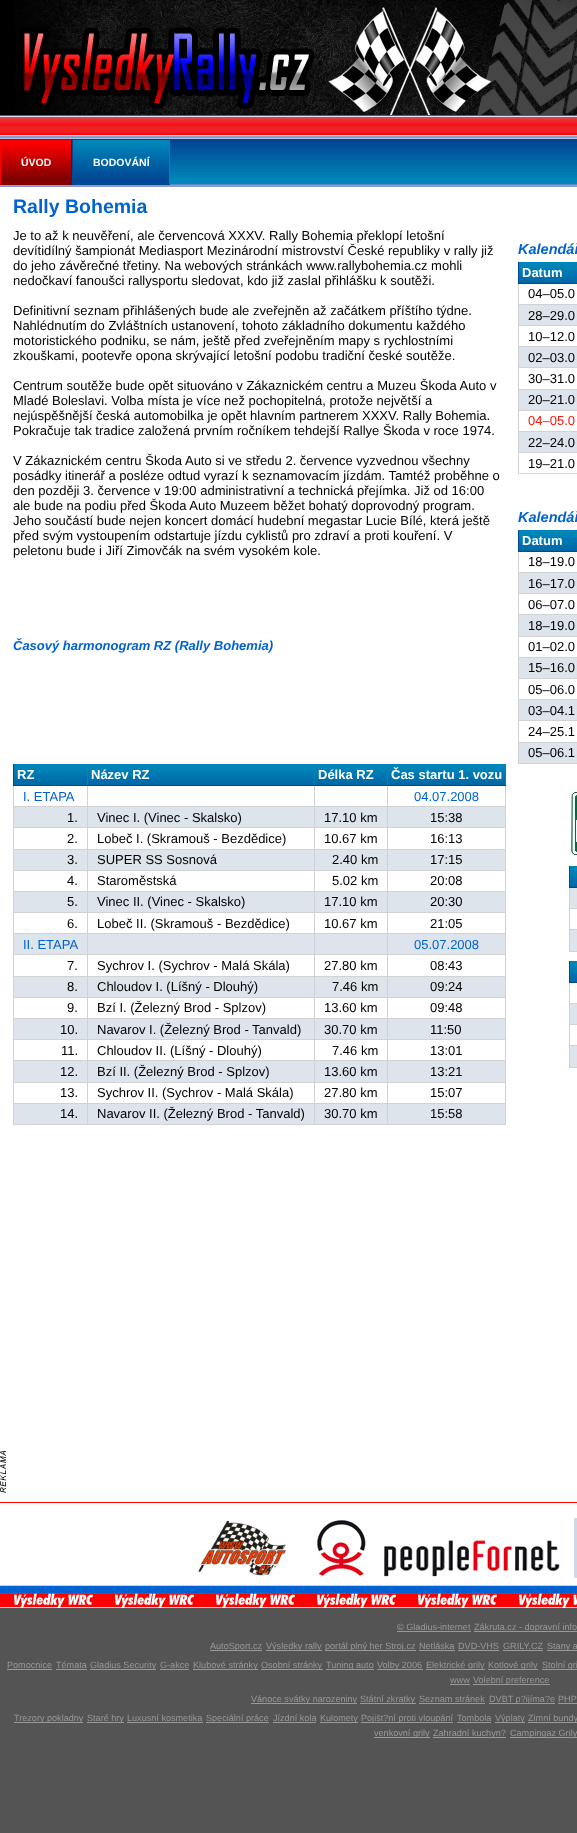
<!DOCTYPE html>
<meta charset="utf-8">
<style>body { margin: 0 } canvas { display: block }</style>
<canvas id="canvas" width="577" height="1833"></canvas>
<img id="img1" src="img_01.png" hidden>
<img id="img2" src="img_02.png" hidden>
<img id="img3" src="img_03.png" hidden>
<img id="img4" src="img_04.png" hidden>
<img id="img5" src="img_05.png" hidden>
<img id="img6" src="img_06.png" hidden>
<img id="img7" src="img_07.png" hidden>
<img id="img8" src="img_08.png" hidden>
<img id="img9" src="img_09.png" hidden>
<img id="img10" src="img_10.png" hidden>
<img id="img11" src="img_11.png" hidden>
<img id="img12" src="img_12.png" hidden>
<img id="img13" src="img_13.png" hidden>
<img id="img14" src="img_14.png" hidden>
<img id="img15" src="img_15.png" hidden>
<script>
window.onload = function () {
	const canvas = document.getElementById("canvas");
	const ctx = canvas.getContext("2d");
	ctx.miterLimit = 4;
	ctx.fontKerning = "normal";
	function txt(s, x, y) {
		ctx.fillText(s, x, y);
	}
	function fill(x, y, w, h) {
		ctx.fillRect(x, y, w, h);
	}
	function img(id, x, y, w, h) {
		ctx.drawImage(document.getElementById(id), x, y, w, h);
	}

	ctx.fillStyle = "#545454";
	fill(0, 0, 577, 1833);
	ctx.fillStyle = "#FFFFFF";
	fill(0, 187, 577, 1398);
	img("img1", 0, 0, 577, 115);
	img("img2", 0, 115, 577, 72);
	ctx.fillStyle = "#820000";
	fill(1, 177, 70, 8);
	img("img3", 1, 141, 70, 36);
	ctx.fillStyle = "#FF0000";
	fill(0, 140, 72, 1);
	ctx.fillStyle = "#820000";
	fill(71, 140, 1, 45);
	ctx.fillStyle = "#FF0000";
	fill(0, 140, 1, 45);
	img("img4", 73, 141, 96, 43);
	ctx.fillStyle = "#0083B7";
	fill(72, 140, 98, 1);
	fill(169, 140, 1, 45);
	ctx.fillStyle = "#024794";
	fill(72, 184, 98, 1);
	fill(72, 140, 1, 45);
	img("img5", 519, 263, 58, 20);
	ctx.fillStyle = "#0083B7";
	fill(518, 262, 59, 1);
	ctx.fillStyle = "#D0D2D4";
	fill(518, 304, 59, 1);
	fill(518, 325, 59, 1);
	fill(518, 346, 59, 1);
	fill(518, 367, 59, 1);
	fill(518, 389, 59, 1);
	fill(518, 410, 59, 1);
	fill(518, 431, 59, 1);
	fill(518, 452, 59, 1);
	fill(518, 473, 59, 1);
	fill(518, 452, 1, 22);
	fill(518, 431, 1, 22);
	fill(518, 410, 1, 22);
	fill(518, 389, 1, 22);
	fill(518, 367, 1, 23);
	fill(518, 346, 1, 22);
	fill(518, 325, 1, 22);
	fill(518, 283, 1, 43);
	ctx.fillStyle = "#024794";
	fill(518, 283, 59, 1);
	fill(518, 262, 1, 22);
	ctx.fillStyle = "#DDE4EC";
	fill(519, 305, 58, 20);
	fill(519, 347, 58, 20);
	fill(519, 390, 58, 20);
	fill(519, 432, 58, 20);
	img("img5", 519, 531, 58, 20);
	ctx.fillStyle = "#0083B7";
	fill(518, 530, 59, 1);
	ctx.fillStyle = "#D0D2D4";
	fill(518, 572, 59, 1);
	fill(518, 593, 59, 1);
	fill(518, 614, 59, 1);
	fill(518, 636, 59, 1);
	fill(518, 657, 59, 1);
	fill(518, 678, 59, 1);
	fill(518, 699, 59, 1);
	fill(518, 720, 59, 1);
	fill(518, 742, 59, 1);
	fill(518, 763, 59, 1);
	fill(518, 742, 1, 22);
	fill(518, 720, 1, 23);
	fill(518, 699, 1, 22);
	fill(518, 678, 1, 22);
	fill(518, 657, 1, 22);
	fill(518, 636, 1, 22);
	fill(518, 614, 1, 23);
	fill(518, 593, 1, 22);
	fill(518, 551, 1, 43);
	ctx.fillStyle = "#024794";
	fill(518, 551, 59, 1);
	fill(518, 530, 1, 22);
	ctx.fillStyle = "#DDE4EC";
	fill(519, 573, 58, 20);
	fill(519, 615, 58, 21);
	fill(519, 658, 58, 20);
	fill(519, 700, 58, 20);
	fill(519, 743, 58, 20);
	img("img6", 14, 765, 73, 20);
	ctx.fillStyle = "#0083B7";
	fill(13, 764, 493, 1);
	ctx.fillStyle = "#D0D2D4";
	fill(387, 806, 119, 1);
	fill(387, 827, 119, 1);
	fill(387, 849, 119, 1);
	fill(387, 870, 119, 1);
	fill(387, 891, 119, 1);
	fill(387, 912, 119, 1);
	fill(387, 933, 119, 1);
	fill(387, 954, 119, 1);
	fill(387, 976, 119, 1);
	fill(387, 997, 119, 1);
	fill(387, 1018, 119, 1);
	fill(387, 1039, 119, 1);
	fill(387, 1060, 119, 1);
	fill(387, 1082, 119, 1);
	fill(387, 1103, 119, 1);
	fill(505, 1103, 1, 22);
	fill(505, 1082, 1, 22);
	fill(505, 1060, 1, 23);
	fill(505, 1039, 1, 22);
	fill(505, 1018, 1, 22);
	fill(505, 997, 1, 22);
	fill(505, 976, 1, 22);
	fill(505, 954, 1, 23);
	fill(505, 933, 1, 22);
	fill(505, 912, 1, 22);
	fill(505, 891, 1, 22);
	fill(505, 870, 1, 22);
	fill(505, 849, 1, 22);
	fill(505, 827, 1, 23);
	fill(505, 785, 1, 43);
	ctx.fillStyle = "#0083B7";
	fill(505, 764, 1, 22);
	ctx.fillStyle = "#D0D2D4";
	fill(387, 1124, 119, 1);
	fill(387, 1103, 1, 22);
	fill(314, 1103, 74, 1);
	fill(387, 1082, 1, 22);
	fill(314, 1082, 74, 1);
	fill(387, 1060, 1, 23);
	fill(314, 1060, 74, 1);
	fill(387, 1039, 1, 22);
	fill(314, 1039, 74, 1);
	fill(387, 1018, 1, 22);
	fill(314, 1018, 74, 1);
	fill(387, 997, 1, 22);
	fill(314, 997, 74, 1);
	fill(387, 976, 1, 22);
	fill(314, 976, 74, 1);
	fill(387, 954, 1, 23);
	fill(314, 954, 74, 1);
	fill(387, 933, 1, 22);
	fill(314, 933, 74, 1);
	fill(387, 912, 1, 22);
	fill(314, 912, 74, 1);
	fill(387, 891, 1, 22);
	fill(314, 891, 74, 1);
	fill(387, 870, 1, 22);
	fill(314, 870, 74, 1);
	fill(387, 849, 1, 22);
	fill(314, 849, 74, 1);
	fill(387, 827, 1, 23);
	fill(314, 827, 74, 1);
	fill(387, 806, 1, 22);
	fill(314, 806, 74, 1);
	fill(387, 785, 1, 22);
	ctx.fillStyle = "#024794";
	fill(387, 785, 119, 1);
	ctx.fillStyle = "#0083B7";
	fill(387, 764, 1, 22);
	ctx.fillStyle = "#D0D2D4";
	fill(314, 1124, 74, 1);
	fill(314, 1103, 1, 22);
	fill(87, 1103, 228, 1);
	fill(314, 1082, 1, 22);
	fill(87, 1082, 228, 1);
	fill(314, 1060, 1, 23);
	fill(87, 1060, 228, 1);
	fill(314, 1039, 1, 22);
	fill(87, 1039, 228, 1);
	fill(314, 1018, 1, 22);
	fill(87, 1018, 228, 1);
	fill(314, 997, 1, 22);
	fill(87, 997, 228, 1);
	fill(314, 976, 1, 22);
	fill(87, 976, 228, 1);
	fill(314, 954, 1, 23);
	fill(87, 954, 228, 1);
	fill(314, 933, 1, 22);
	fill(87, 933, 228, 1);
	fill(314, 912, 1, 22);
	fill(87, 912, 228, 1);
	fill(314, 891, 1, 22);
	fill(87, 891, 228, 1);
	fill(314, 870, 1, 22);
	fill(87, 870, 228, 1);
	fill(314, 849, 1, 22);
	fill(87, 849, 228, 1);
	fill(314, 827, 1, 23);
	fill(87, 827, 228, 1);
	fill(314, 806, 1, 22);
	fill(87, 806, 228, 1);
	fill(314, 785, 1, 22);
	ctx.fillStyle = "#024794";
	fill(314, 785, 74, 1);
	ctx.fillStyle = "#0083B7";
	fill(314, 764, 1, 22);
	ctx.fillStyle = "#D0D2D4";
	fill(87, 1124, 228, 1);
	fill(87, 1103, 1, 22);
	fill(13, 1103, 75, 1);
	fill(87, 1082, 1, 22);
	fill(13, 1082, 75, 1);
	fill(87, 1060, 1, 23);
	fill(13, 1060, 75, 1);
	fill(87, 1039, 1, 22);
	fill(13, 1039, 75, 1);
	fill(87, 1018, 1, 22);
	fill(13, 1018, 75, 1);
	fill(87, 997, 1, 22);
	fill(13, 997, 75, 1);
	fill(87, 976, 1, 22);
	fill(13, 976, 75, 1);
	fill(87, 954, 1, 23);
	fill(13, 954, 75, 1);
	fill(87, 933, 1, 22);
	fill(13, 933, 75, 1);
	fill(87, 912, 1, 22);
	fill(13, 912, 75, 1);
	fill(87, 891, 1, 22);
	fill(13, 891, 75, 1);
	fill(87, 870, 1, 22);
	fill(13, 870, 75, 1);
	fill(87, 849, 1, 22);
	fill(13, 849, 75, 1);
	fill(87, 827, 1, 23);
	fill(13, 827, 75, 1);
	fill(87, 806, 1, 22);
	fill(13, 806, 75, 1);
	fill(87, 785, 1, 22);
	ctx.fillStyle = "#024794";
	fill(87, 785, 228, 1);
	ctx.fillStyle = "#0083B7";
	fill(87, 764, 1, 22);
	ctx.fillStyle = "#D0D2D4";
	fill(13, 1124, 75, 1);
	fill(13, 1103, 1, 22);
	fill(13, 1082, 1, 22);
	fill(13, 1060, 1, 23);
	fill(13, 1039, 1, 22);
	fill(13, 1018, 1, 22);
	fill(13, 997, 1, 22);
	fill(13, 976, 1, 22);
	fill(13, 954, 1, 23);
	fill(13, 933, 1, 22);
	fill(13, 912, 1, 22);
	fill(13, 891, 1, 22);
	fill(13, 870, 1, 22);
	fill(13, 849, 1, 22);
	fill(13, 827, 1, 23);
	fill(13, 785, 1, 43);
	ctx.fillStyle = "#024794";
	fill(13, 785, 75, 1);
	fill(13, 764, 1, 22);
	img("img7", 88, 765, 226, 20);
	img("img8", 315, 765, 72, 20);
	img("img9", 388, 765, 117, 20);
	ctx.fillStyle = "#DDE4EC";
	fill(14, 807, 73, 20);
	fill(88, 807, 226, 20);
	fill(315, 807, 72, 20);
	fill(388, 807, 117, 20);
	fill(14, 850, 73, 20);
	fill(88, 850, 226, 20);
	fill(315, 850, 72, 20);
	fill(388, 850, 117, 20);
	fill(14, 892, 73, 20);
	fill(88, 892, 226, 20);
	fill(315, 892, 72, 20);
	fill(388, 892, 117, 20);
	fill(14, 934, 73, 20);
	fill(88, 934, 226, 20);
	fill(315, 934, 72, 20);
	fill(388, 934, 117, 20);
	fill(14, 977, 73, 20);
	fill(88, 977, 226, 20);
	fill(315, 977, 72, 20);
	fill(388, 977, 117, 20);
	fill(14, 1019, 73, 20);
	fill(88, 1019, 226, 20);
	fill(315, 1019, 72, 20);
	fill(388, 1019, 117, 20);
	fill(14, 1061, 73, 21);
	fill(88, 1061, 226, 21);
	fill(315, 1061, 72, 21);
	fill(388, 1061, 117, 21);
	fill(14, 1104, 73, 20);
	fill(88, 1104, 226, 20);
	fill(315, 1104, 72, 20);
	fill(388, 1104, 117, 20);
	img("img10", 569, 788, 8, 69);
	img("img11", 570, 867, 7, 20);
	ctx.fillStyle = "#0083B7";
	fill(569, 866, 8, 1);
	ctx.fillStyle = "#DDE4EC";
	fill(570, 888, 7, 21);
	ctx.fillStyle = "#D0D2D4";
	fill(569, 908, 8, 1);
	fill(569, 929, 8, 1);
	fill(569, 951, 8, 1);
	fill(569, 929, 1, 23);
	fill(569, 887, 1, 43);
	ctx.fillStyle = "#024794";
	fill(569, 887, 8, 1);
	fill(569, 866, 1, 22);
	ctx.fillStyle = "#DDE4EC";
	fill(570, 930, 7, 21);
	img("img11", 570, 962, 7, 20);
	ctx.fillStyle = "#0083B7";
	fill(569, 961, 8, 1);
	ctx.fillStyle = "#D0D2D4";
	fill(569, 1003, 8, 1);
	ctx.fillStyle = "#DDE4EC";
	fill(570, 1004, 7, 21);
	ctx.fillStyle = "#D0D2D4";
	fill(569, 1024, 8, 1);
	fill(569, 1045, 8, 1);
	fill(569, 1067, 8, 1);
	fill(569, 1045, 1, 23);
	fill(569, 1024, 1, 22);
	fill(569, 982, 1, 43);
	ctx.fillStyle = "#024794";
	fill(569, 982, 8, 1);
	fill(569, 961, 1, 22);
	ctx.fillStyle = "#DDE4EC";
	fill(570, 1046, 7, 21);
	img("img12", 0, 1451, 6, 42);
	ctx.fillStyle = "#FF0000";
	fill(0, 1502, 577, 1);
	img("img13", 0, 1585, 577, 23);
	img("img14", 198, 1519, 89, 57);
	img("img15", 317, 1520, 243, 57);
	ctx.fillStyle = "#CDD8E9";
	fill(574, 1518, 3, 60);
	ctx.fillStyle = "#999999";
	fill(397, 1631, 74, 1);
	fill(474, 1631, 103, 1);
	fill(210, 1650, 52, 1);
	fill(266, 1650, 56, 1);
	fill(325, 1650, 91, 1);
	fill(419, 1650, 36, 1);
	fill(458, 1650, 41, 1);
	fill(503, 1650, 40, 1);
	fill(547, 1650, 30, 1);
	fill(7, 1669, 45, 1);
	fill(56, 1669, 31, 1);
	fill(90, 1669, 66, 1);
	fill(160, 1669, 29, 1);
	fill(193, 1669, 65, 1);
	fill(261, 1669, 62, 1);
	fill(326, 1669, 48, 1);
	fill(377, 1669, 46, 1);
	fill(426, 1669, 59, 1);
	fill(488, 1669, 50, 1);
	fill(542, 1669, 35, 1);
	fill(450, 1684, 20, 1);
	fill(473, 1684, 77, 1);
	fill(251, 1703, 106, 1);
	fill(360, 1703, 56, 1);
	fill(419, 1703, 66, 1);
	fill(489, 1703, 66, 1);
	fill(558, 1703, 19, 1);
	fill(14, 1722, 69, 1);
	fill(87, 1722, 37, 1);
	fill(127, 1722, 76, 1);
	fill(206, 1722, 63, 1);
	fill(273, 1722, 43, 1);
	fill(320, 1722, 38, 1);
	fill(361, 1722, 92, 1);
	fill(457, 1722, 34, 1);
	fill(495, 1722, 30, 1);
	fill(528, 1722, 49, 1);
	fill(374, 1737, 56, 1);
	fill(433, 1737, 73, 1);
	fill(510, 1737, 67, 1);
	ctx.font = "bold 10.5px Liberation Sans";
	ctx.fillStyle = "#FFFFFF";
	txt("ÚVOD", 21, 166);
	txt("BODOVÁNÍ", 93, 166);
	ctx.font = "bold 19.5px Liberation Sans";
	ctx.fillStyle = "#0163D2";
	txt("Rally Bohemia", 13, 213);
	ctx.font = "13px Liberation Sans";
	ctx.fillStyle = "#000000";
	txt("Je to až k neuvěření, ale červencová XXXV. Rally Bohemia překlopí letošní", 13, 240);
	txt("devítidílný šampionát Mediasport Mezinárodní mistrovství České republiky v rally již", 13, 255);
	txt("do jeho závěrečné třetiny. Na webových stránkách www.rallybohemia.cz mohli", 13, 270);
	txt("nedočkaví fanoušci rallysportu sledovat, kdo již zaslal přihlášku k soutěži.", 13, 285);
	txt("Definitivní seznam přihlášených bude ale zveřejněn až začátkem příštího týdne.", 13, 315);
	txt("Nahlédnutím do Zvláštních ustanovení, tohoto základního dokumentu každého", 13, 330);
	txt("motoristického podniku, se nám, ještě před zveřejněním mapy s rychlostními", 13, 345);
	txt("zkouškami, pootevře opona skrývající letošní podobu tradiční české soutěže.", 13, 360);
	txt("Centrum soutěže bude opět situováno v Zákaznickém centru a Muzeu Škoda Auto v", 13, 390);
	txt("Mladé Boleslavi. Volba místa je více než pochopitelná, protože největší a", 13, 405);
	txt("nejúspěšnější česká automobilka je opět hlavním partnerem XXXV. Rally Bohemia.", 13, 420);
	txt("Pokračuje tak tradice založená prvním ročníkem tehdejší Rallye Škoda v roce 1974.", 13, 435);
	txt("V Zákaznickém centru Škoda Auto si ve středu 2. července vyzvednou všechny", 13, 465);
	txt("posádky itinerář a posléze odtud vyrazí k seznamovacím jízdám. Tamtéž proběhne o", 13, 480);
	txt("den později 3. července v 19:00 administrativní a technická přejímka. Již od 16:00", 13, 495);
	txt("ale bude na podiu před Škoda Auto Muzeem běžet bohatý doprovodný program.", 13, 510);
	txt("Jeho součástí bude nejen koncert domácí hudební megastar Lucie Bílé, která ještě", 13, 525);
	txt("před svým vystoupením odstartuje jízdu cyklistů pro zdraví a proti kouření. V", 13, 540);
	txt("peletonu bude i Jiří Zimovčák na svém vysokém kole.", 13, 555);
	ctx.font = "italic bold 14.5px Liberation Sans";
	ctx.fillStyle = "#0163D2";
	txt("Kalendář", 518, 254);
	ctx.font = "bold 13px Liberation Sans";
	ctx.fillStyle = "#FFFFFF";
	txt("Datum", 522, 277);
	ctx.font = "13px Liberation Sans";
	ctx.fillStyle = "#000000";
	txt("04–05.0", 528, 298);
	txt("28–29.0", 528, 320);
	txt("10–12.0", 528, 341);
	txt("02–03.0", 528, 362);
	txt("30–31.0", 528, 383);
	txt("20–21.0", 528, 404);
	ctx.fillStyle = "#F41B0D";
	txt("04–05.0", 528, 425);
	ctx.fillStyle = "#000000";
	txt("22–24.0", 528, 447);
	txt("19–21.0", 528, 468);
	ctx.font = "italic bold 14.5px Liberation Sans";
	ctx.fillStyle = "#0163D2";
	txt("Kalendář", 518, 522);
	ctx.font = "bold 13px Liberation Sans";
	ctx.fillStyle = "#FFFFFF";
	txt("Datum", 522, 545);
	ctx.font = "13px Liberation Sans";
	ctx.fillStyle = "#000000";
	txt("18–19.0", 528, 566);
	txt("16–17.0", 528, 588);
	txt("06–07.0", 528, 609);
	txt("18–19.0", 528, 630);
	txt("01–02.0", 528, 651);
	txt("15–16.0", 528, 672);
	txt("05–06.0", 528, 694);
	txt("03–04.1", 528, 715);
	txt("24–25.1", 528, 736);
	txt("05–06.1", 528, 757);
	ctx.font = "italic bold 13px Liberation Sans";
	ctx.fillStyle = "#0163D2";
	txt("Časový harmonogram RZ (Rally Bohemia)", 13, 650);
	ctx.font = "bold 13px Liberation Sans";
	ctx.fillStyle = "#FFFFFF";
	txt("RZ", 17, 779);
	txt("Název RZ", 91, 779);
	txt("Délka RZ", 318, 779);
	txt("Čas startu 1. vozu", 391, 779);
	ctx.font = "13px Liberation Sans";
	ctx.fillStyle = "#0163D2";
	txt("I. ETAPA", 23, 801);
	txt("04.07.2008", 414, 801);
	ctx.fillStyle = "#000000";
	txt("1.", 67, 822);
	txt("Vinec I. (Vinec - Skalsko)", 97, 822);
	txt("17.10 km", 324, 822);
	txt("15:38", 430, 822);
	txt("2.", 67, 843);
	txt("Lobeč I. (Skramouš - Bezdědice)", 97, 843);
	txt("10.67 km", 324, 843);
	txt("16:13", 430, 843);
	txt("3.", 67, 864);
	txt("SUPER SS Sosnová", 97, 864);
	txt("2.40 km", 332, 864);
	txt("17:15", 430, 864);
	txt("4.", 67, 885);
	txt("Staroměstská", 97, 885);
	txt("5.02 km", 332, 885);
	txt("20:08", 430, 885);
	txt("5.", 67, 906);
	txt("Vinec II. (Vinec - Skalsko)", 97, 906);
	txt("17.10 km", 324, 906);
	txt("20:30", 430, 906);
	txt("6.", 67, 928);
	txt("Lobeč II. (Skramouš - Bezdědice)", 97, 928);
	txt("10.67 km", 324, 928);
	txt("21:05", 430, 928);
	ctx.fillStyle = "#0163D2";
	txt("II. ETAPA", 23, 949);
	txt("05.07.2008", 414, 949);
	ctx.fillStyle = "#000000";
	txt("7.", 67, 970);
	txt("Sychrov I. (Sychrov - Malá Skála)", 97, 970);
	txt("27.80 km", 324, 970);
	txt("08:43", 430, 970);
	txt("8.", 67, 991);
	txt("Chloudov I. (Líšný - Dlouhý)", 97, 991);
	txt("7.46 km", 332, 991);
	txt("09:24", 430, 991);
	txt("9.", 67, 1012);
	txt("Bzí I. (Železný Brod - Splzov)", 97, 1012);
	txt("13.60 km", 324, 1012);
	txt("09:48", 430, 1012);
	txt("10.", 60, 1034);
	txt("Navarov I. (Železný Brod - Tanvald)", 97, 1034);
	txt("30.70 km", 324, 1034);
	txt("11:50", 430, 1034);
	txt("11.", 61, 1055);
	txt("Chloudov II. (Líšný - Dlouhý)", 97, 1055);
	txt("7.46 km", 332, 1055);
	txt("13:01", 430, 1055);
	txt("12.", 60, 1076);
	txt("Bzí II. (Železný Brod - Splzov)", 97, 1076);
	txt("13.60 km", 324, 1076);
	txt("13:21", 430, 1076);
	txt("13.", 60, 1097);
	txt("Sychrov II. (Sychrov - Malá Skála)", 97, 1097);
	txt("27.80 km", 324, 1097);
	txt("15:07", 430, 1097);
	txt("14.", 60, 1118);
	txt("Navarov II. (Železný Brod - Tanvald)", 97, 1118);
	txt("30.70 km", 324, 1118);
	txt("15:58", 430, 1118);
	ctx.font = "9.1px Liberation Sans";
	ctx.fillStyle = "#999999";
	txt("© Gladius-internet", 397, 1630);
	txt("Zákruta.cz - dopravní info", 474, 1630);
	txt("AutoSport.cz", 210, 1649);
	txt("Výsledky rally", 266, 1649);
	txt("portál plný her Stroj.cz", 325, 1649);
	txt("Netláska", 419, 1649);
	txt("DVD-VHS", 458, 1649);
	txt("GRILY.CZ", 503, 1649);
	txt("Stany a", 547, 1649);
	txt("Pomocnice", 7, 1668);
	txt("Témata", 56, 1668);
	txt("Gladius Security", 90, 1668);
	txt("G-akce", 160, 1668);
	txt("Klubové stránky", 193, 1668);
	txt("Osobní stránky", 261, 1668);
	txt("Tuning auto", 326, 1668);
	txt("Volby 2006", 377, 1668);
	txt("Elektrické grily", 426, 1668);
	txt("Kotlové grily", 488, 1668);
	txt("Stolní gri", 542, 1668);
	txt("www", 450, 1683);
	txt("Volební preference", 473, 1683);
	txt("Vánoce svátky narozeniny", 251, 1702);
	txt("Státní zkratky", 360, 1702);
	txt("Seznam stránek", 419, 1702);
	txt("DVBT p?ijíma?e", 489, 1702);
	txt("PHP", 558, 1702);
	txt("Trezory pokladny", 14, 1721);
	txt("Staré hry", 87, 1721);
	txt("Luxusní kosmetika", 127, 1721);
	txt("Speciální práce", 206, 1721);
	txt("Jízdní kola", 273, 1721);
	txt("Kulomety", 320, 1721);
	txt("Pojišt?ní proti vloupání", 361, 1721);
	txt("Tombola", 457, 1721);
	txt("Výplaty", 495, 1721);
	txt("Zimní bundy", 528, 1721);
	txt("venkovní grily", 374, 1736);
	txt("Zahradní kuchyn?", 433, 1736);
	txt("Campingaz Grily", 510, 1736);
};
</script>
